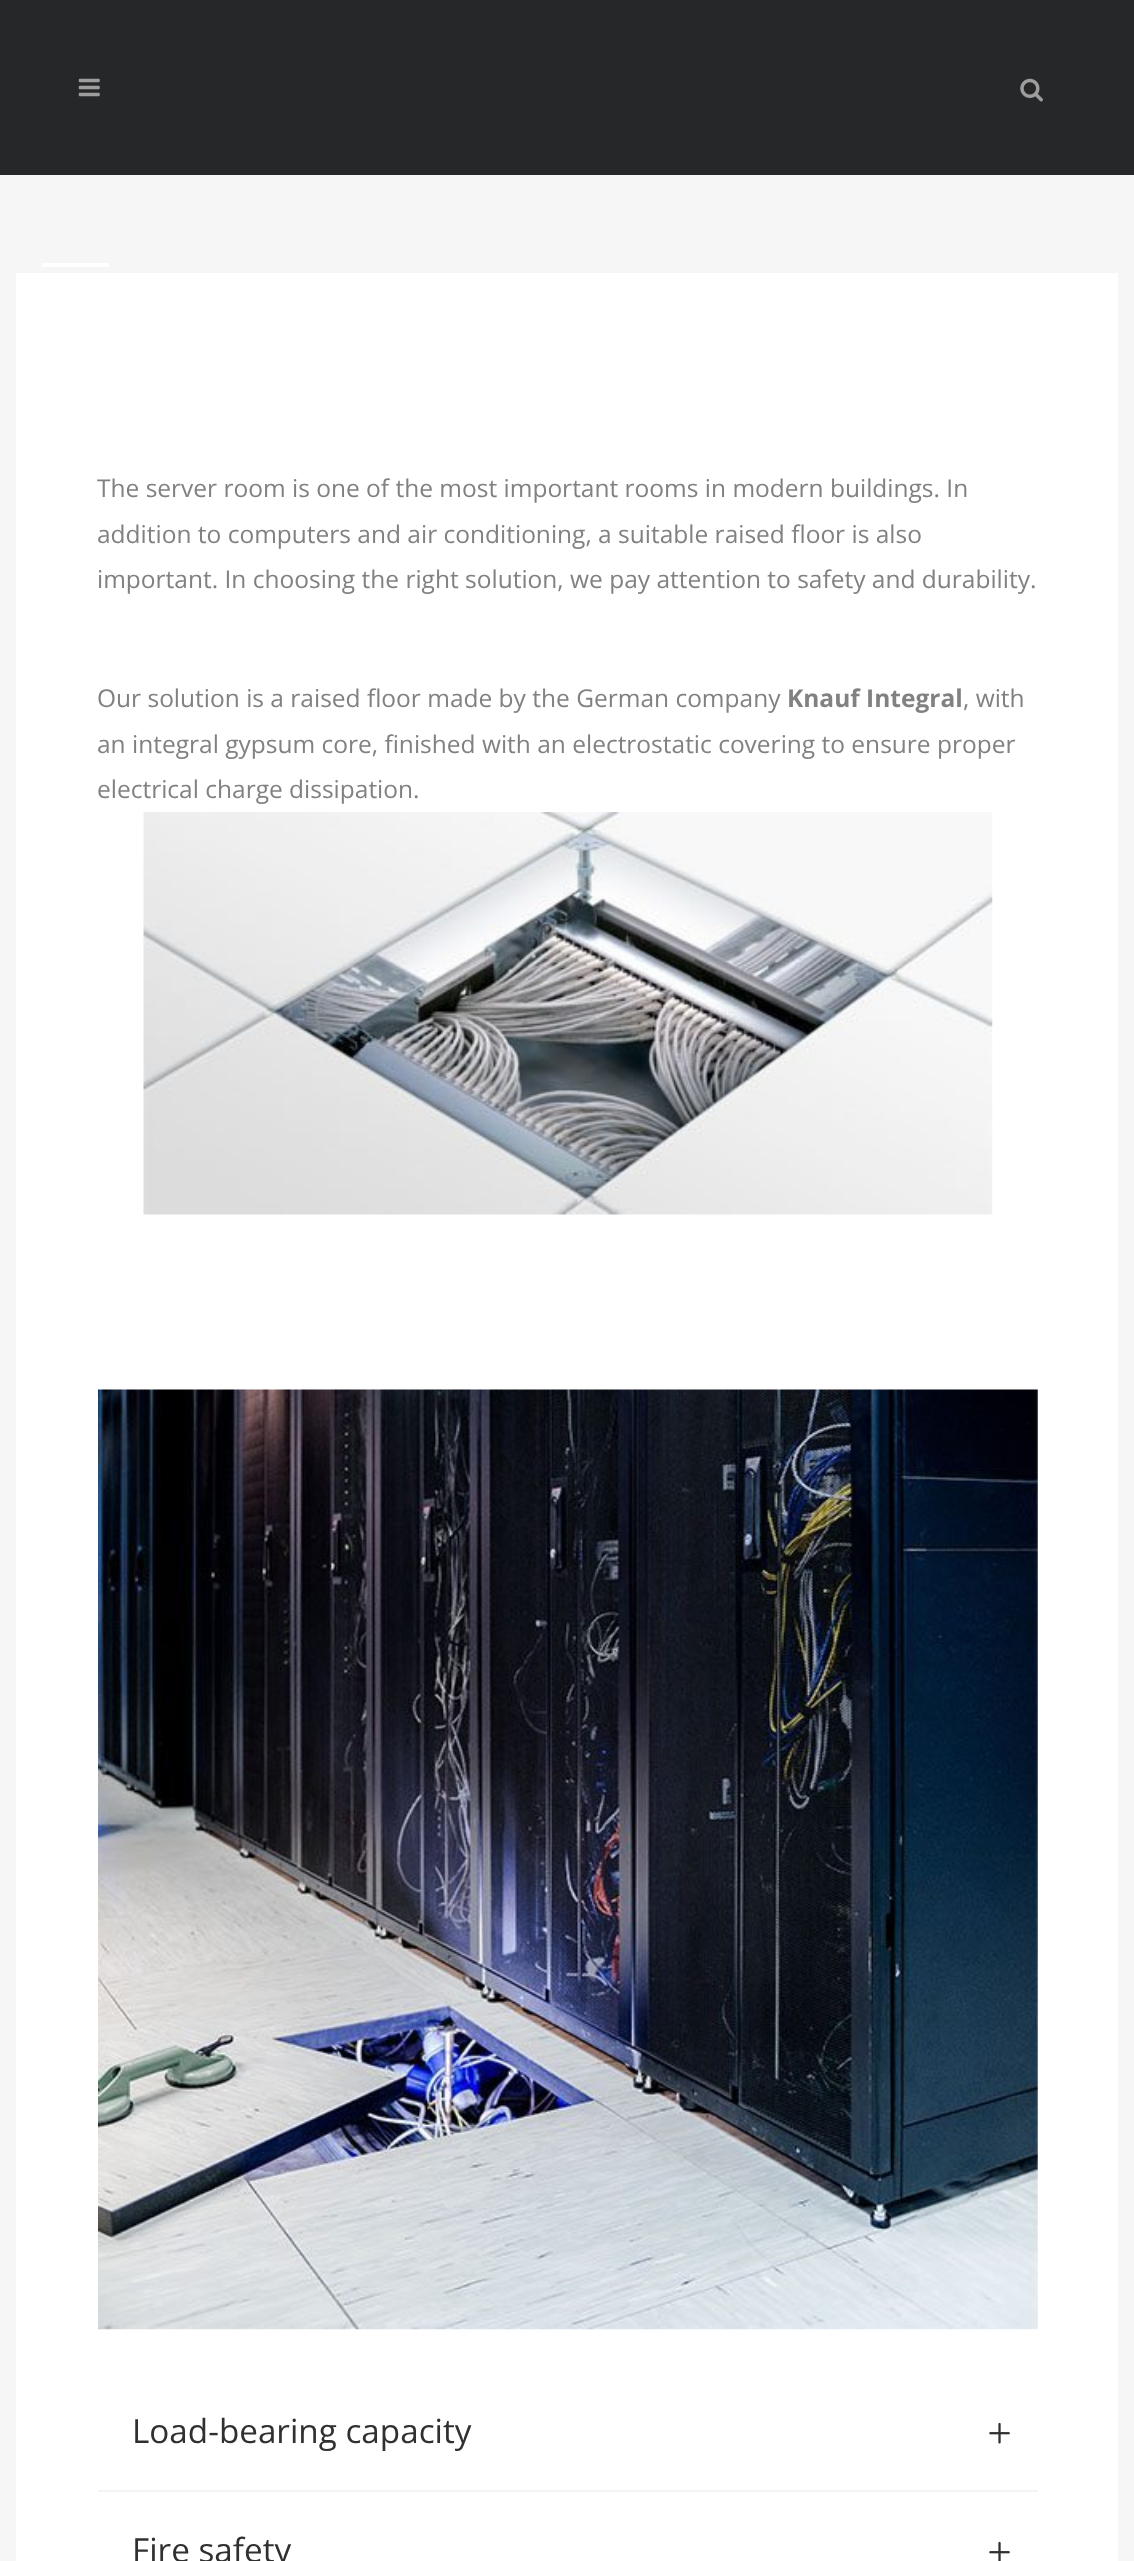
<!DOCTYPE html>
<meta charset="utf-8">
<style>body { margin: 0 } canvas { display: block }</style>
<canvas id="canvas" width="1134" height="2561"></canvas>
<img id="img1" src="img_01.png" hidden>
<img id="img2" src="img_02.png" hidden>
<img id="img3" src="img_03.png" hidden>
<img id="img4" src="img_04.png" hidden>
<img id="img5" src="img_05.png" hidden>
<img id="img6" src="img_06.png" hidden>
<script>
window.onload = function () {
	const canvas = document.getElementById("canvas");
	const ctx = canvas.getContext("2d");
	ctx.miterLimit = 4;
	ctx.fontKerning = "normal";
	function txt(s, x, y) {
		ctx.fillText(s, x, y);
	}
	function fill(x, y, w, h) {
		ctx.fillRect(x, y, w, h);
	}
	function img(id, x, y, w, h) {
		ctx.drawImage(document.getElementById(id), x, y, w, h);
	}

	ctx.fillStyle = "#F6F6F6";
	fill(0, 0, 1134, 2561);
	ctx.fillStyle = "#262728";
	fill(0, 0, 1134, 175);
	img("img1", 78, 78, 22, 19);
	img("img2", 1020, 78, 23, 24);
	ctx.fillStyle = "#FFFFFF";
	fill(42, 263, 67, 4);
	fill(16, 273, 1102, 2288);
	img("img3", 143, 812, 850, 403);
	img("img4", 98, 1389, 940, 941);
	ctx.fillStyle = "#F4F4F4";
	fill(98, 2490, 940, 2);
	img("img5", 989, 2422, 21, 22);
	img("img6", 989, 2541, 21, 20);
	ctx.font = "24.5px Open Sans";
	ctx.fillStyle = "#818181";
	txt("The server room is one of the most important rooms in modern buildings. In", 97, 497);
	txt("addition to computers and air conditioning, a suitable raised floor is also", 97, 543);
	txt("important. In choosing the right solution, we pay attention to safety and durability.", 97, 588);
	txt("Our solution is a raised floor made by the German company", 97, 707);
	ctx.font = "bold 24.5px Open Sans";
	txt("Knauf Integral", 787, 707);
	ctx.font = "24.5px Open Sans";
	txt(", with", 963, 707);
	txt("an integral gypsum core, finished with an electrostatic covering to ensure proper", 97, 753);
	txt("electrical charge dissipation.", 97, 798);
	ctx.font = "33.25px Open Sans";
	ctx.fillStyle = "#303030";
	txt("Load-bearing capacity", 132, 2443);
	txt("Fire safety", 132, 2562);
};
</script>
